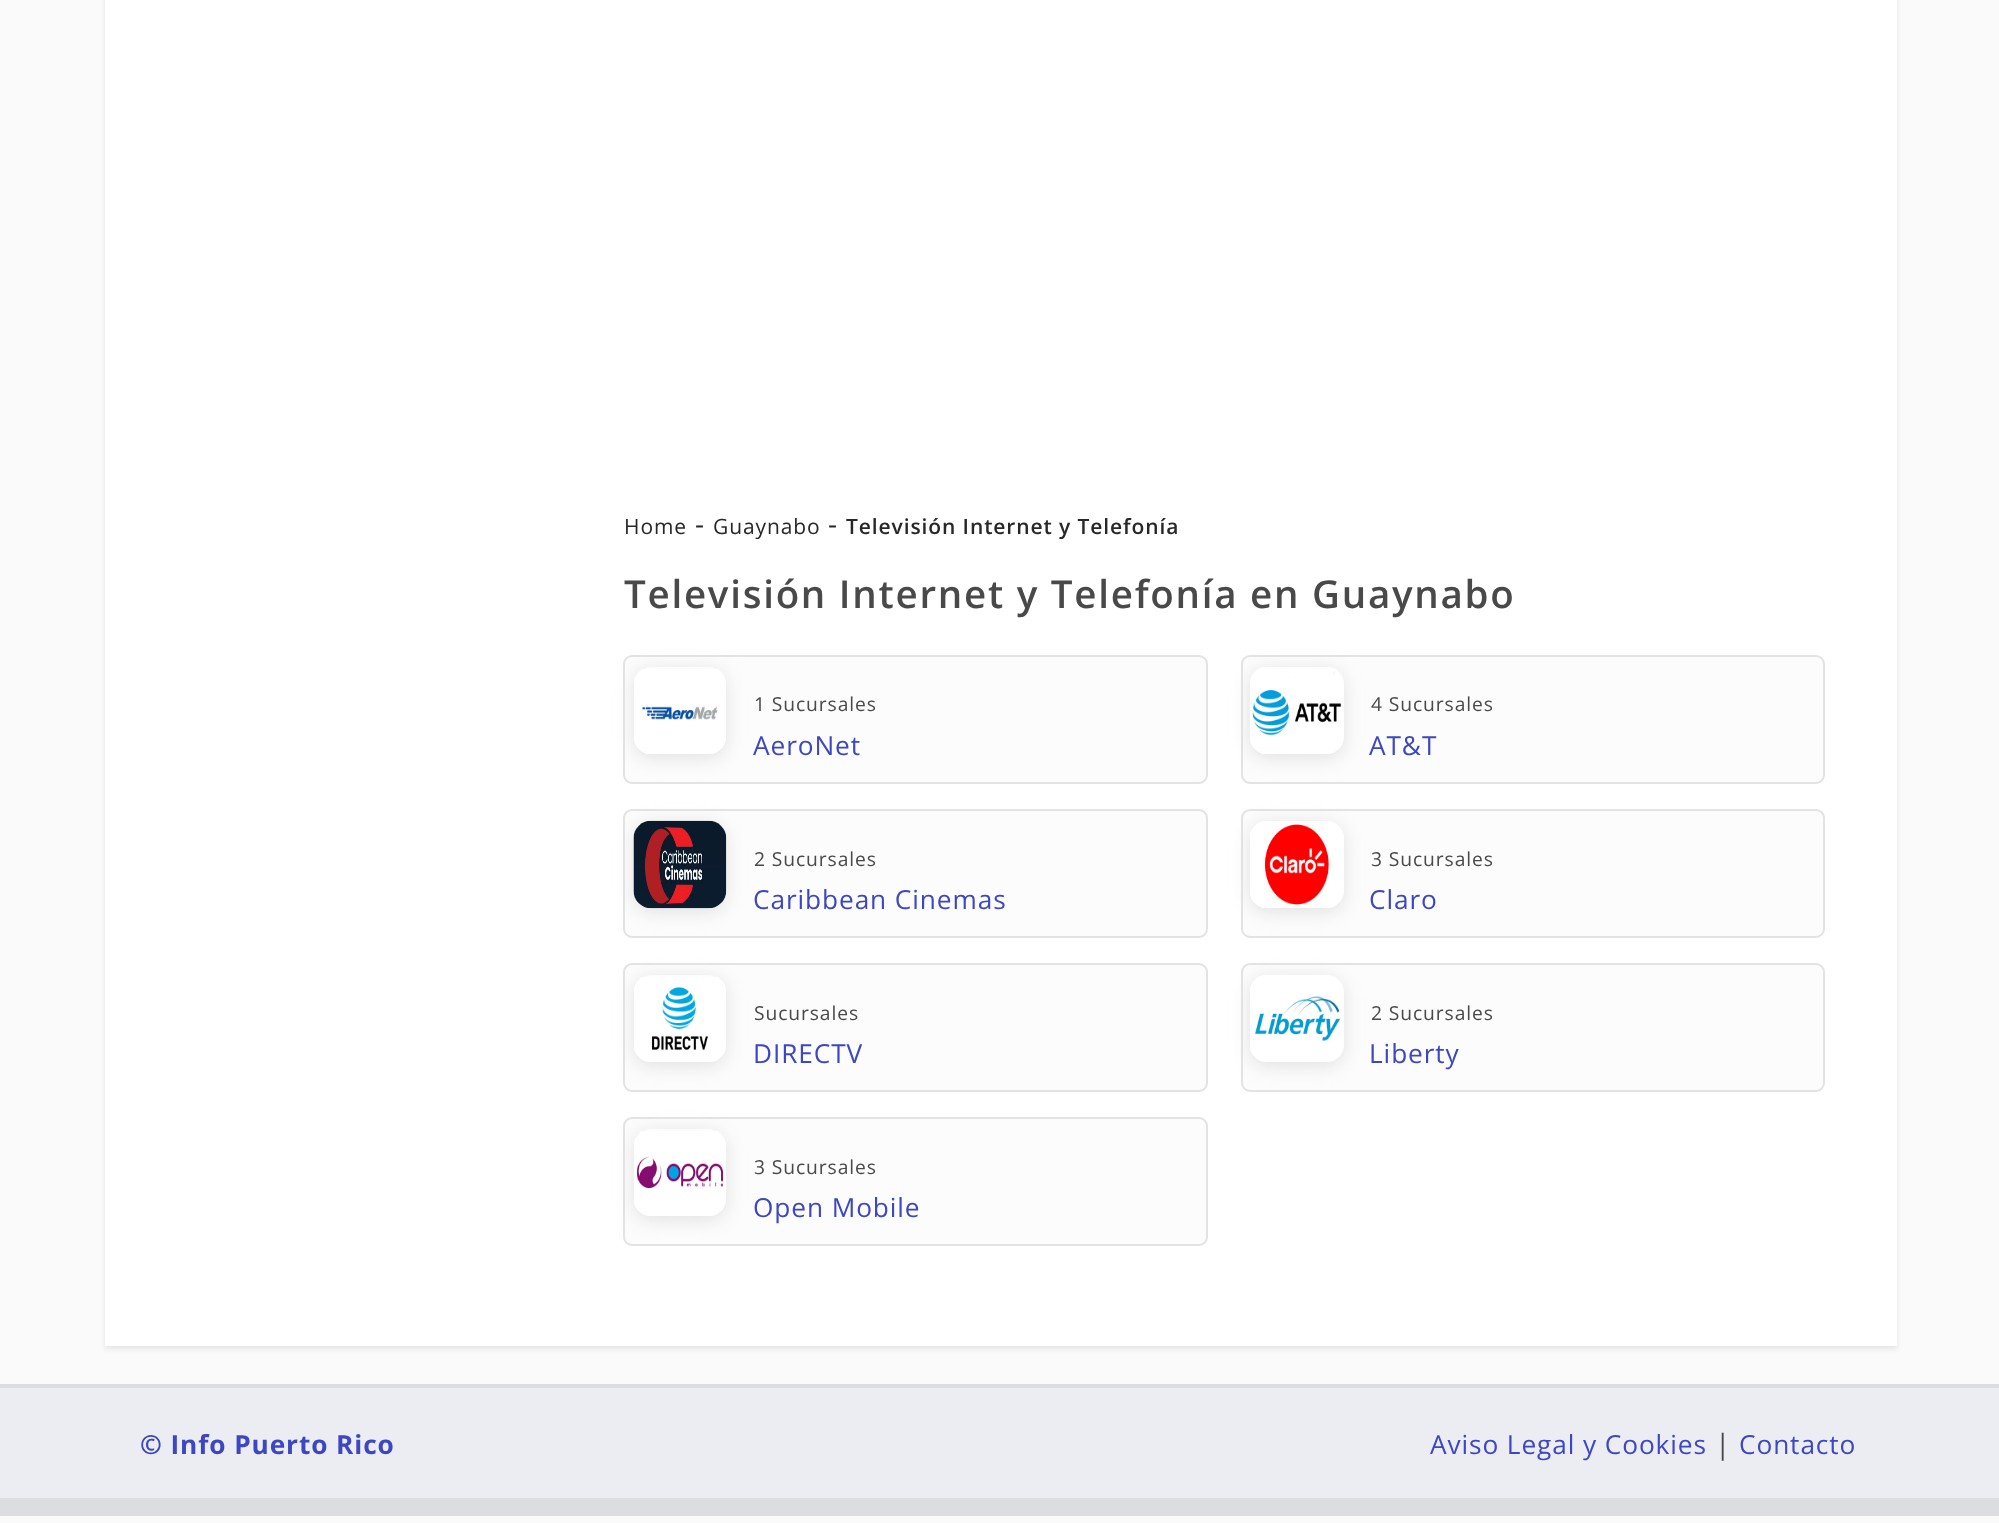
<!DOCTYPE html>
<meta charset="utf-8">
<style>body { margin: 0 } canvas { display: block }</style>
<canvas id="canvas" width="1999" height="1523"></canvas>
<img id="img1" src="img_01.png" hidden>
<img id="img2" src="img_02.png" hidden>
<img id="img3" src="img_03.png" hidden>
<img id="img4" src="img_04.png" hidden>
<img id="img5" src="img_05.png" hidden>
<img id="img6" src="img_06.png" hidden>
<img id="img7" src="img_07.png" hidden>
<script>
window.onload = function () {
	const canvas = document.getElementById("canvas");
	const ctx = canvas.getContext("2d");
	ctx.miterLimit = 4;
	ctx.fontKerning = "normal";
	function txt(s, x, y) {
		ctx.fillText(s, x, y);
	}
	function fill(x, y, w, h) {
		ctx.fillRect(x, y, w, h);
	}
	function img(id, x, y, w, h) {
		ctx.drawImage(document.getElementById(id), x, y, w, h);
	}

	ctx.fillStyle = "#FAFAFA";
	fill(0, 0, 1999, 1523);
	ctx.fillStyle = "#E5E5E5";
	ctx.filter = "blur(2.5px)";
	ctx.beginPath();
	ctx.rect(105, -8, 1792, 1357);
	ctx.fill();
	ctx.filter = "none";
	ctx.fillStyle = "#FFFFFF";
	fill(105, 0, 1792, 1346);
	ctx.fillStyle = "#FCFCFC";
	ctx.beginPath();
	ctx.roundRect(624, 656, 583, 127, 8);
	ctx.fill();
	ctx.strokeStyle = "#E3E3E3";
	ctx.lineWidth = 2;
	ctx.stroke();
	ctx.save();
	ctx.beginPath();
	ctx.moveTo(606, 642);
	ctx.lineTo(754, 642);
	ctx.lineTo(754, 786);
	ctx.lineTo(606, 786);
	ctx.closePath();
	ctx.moveTo(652, 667);
	ctx.lineTo(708, 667);
	ctx.bezierCurveTo(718, 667, 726, 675, 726, 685);
	ctx.lineTo(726, 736);
	ctx.bezierCurveTo(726, 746, 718, 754, 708, 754);
	ctx.lineTo(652, 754);
	ctx.bezierCurveTo(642, 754, 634, 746, 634, 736);
	ctx.lineTo(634, 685);
	ctx.bezierCurveTo(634, 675, 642, 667, 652, 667);
	ctx.closePath();
	ctx.clip("evenodd");
	ctx.fillStyle = "#E1E1E1";
	ctx.filter = "blur(9px)";
	ctx.beginPath();
	ctx.roundRect(634, 670, 92, 88, 18);
	ctx.fill();
	ctx.filter = "none";
	ctx.restore();
	img("img1", 634, 669, 92, 85);
	ctx.beginPath();
	ctx.roundRect(1242, 656, 582, 127, 8);
	ctx.fill();
	ctx.stroke();
	ctx.fillStyle = "#E1E1E1";
	ctx.filter = "blur(9px)";
	ctx.beginPath();
	ctx.roundRect(1250, 670, 94, 88, 18);
	ctx.fill();
	ctx.filter = "none";
	img("img2", 1250, 667, 94, 87);
	ctx.fillStyle = "#FCFCFC";
	ctx.beginPath();
	ctx.roundRect(624, 810, 583, 127, 8);
	ctx.fill();
	ctx.stroke();
	ctx.fillStyle = "#E1E1E1";
	ctx.filter = "blur(9px)";
	ctx.beginPath();
	ctx.roundRect(634, 824, 92, 88, 18);
	ctx.fill();
	ctx.filter = "none";
	img("img3", 633, 820, 94, 89);
	ctx.fillStyle = "#FCFCFC";
	ctx.beginPath();
	ctx.roundRect(1242, 810, 582, 127, 8);
	ctx.fill();
	ctx.stroke();
	ctx.fillStyle = "#E1E1E1";
	ctx.filter = "blur(9px)";
	ctx.beginPath();
	ctx.roundRect(1250, 824, 94, 88, 18);
	ctx.fill();
	ctx.filter = "none";
	img("img4", 1250, 821, 94, 87);
	ctx.fillStyle = "#FCFCFC";
	ctx.beginPath();
	ctx.roundRect(624, 964, 583, 127, 8);
	ctx.fill();
	ctx.stroke();
	ctx.save();
	ctx.beginPath();
	ctx.moveTo(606, 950);
	ctx.lineTo(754, 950);
	ctx.lineTo(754, 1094);
	ctx.lineTo(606, 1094);
	ctx.closePath();
	ctx.moveTo(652, 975);
	ctx.lineTo(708, 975);
	ctx.bezierCurveTo(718, 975, 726, 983, 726, 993);
	ctx.lineTo(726, 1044);
	ctx.bezierCurveTo(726, 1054, 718, 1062, 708, 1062);
	ctx.lineTo(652, 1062);
	ctx.bezierCurveTo(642, 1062, 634, 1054, 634, 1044);
	ctx.lineTo(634, 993);
	ctx.bezierCurveTo(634, 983, 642, 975, 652, 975);
	ctx.closePath();
	ctx.clip("evenodd");
	ctx.fillStyle = "#E1E1E1";
	ctx.filter = "blur(9px)";
	ctx.beginPath();
	ctx.roundRect(634, 978, 92, 88, 18);
	ctx.fill();
	ctx.filter = "none";
	ctx.restore();
	img("img5", 634, 977, 92, 85);
	ctx.beginPath();
	ctx.roundRect(1242, 964, 582, 127, 8);
	ctx.fill();
	ctx.stroke();
	ctx.fillStyle = "#E1E1E1";
	ctx.filter = "blur(9px)";
	ctx.beginPath();
	ctx.roundRect(1250, 978, 94, 88, 18);
	ctx.fill();
	ctx.filter = "none";
	img("img6", 1250, 975, 94, 87);
	ctx.fillStyle = "#FCFCFC";
	ctx.beginPath();
	ctx.roundRect(624, 1118, 583, 127, 8);
	ctx.fill();
	ctx.stroke();
	ctx.save();
	ctx.beginPath();
	ctx.moveTo(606, 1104);
	ctx.lineTo(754, 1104);
	ctx.lineTo(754, 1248);
	ctx.lineTo(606, 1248);
	ctx.closePath();
	ctx.moveTo(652, 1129);
	ctx.lineTo(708, 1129);
	ctx.bezierCurveTo(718, 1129, 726, 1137, 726, 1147);
	ctx.lineTo(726, 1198);
	ctx.bezierCurveTo(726, 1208, 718, 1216, 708, 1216);
	ctx.lineTo(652, 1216);
	ctx.bezierCurveTo(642, 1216, 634, 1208, 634, 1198);
	ctx.lineTo(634, 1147);
	ctx.bezierCurveTo(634, 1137, 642, 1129, 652, 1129);
	ctx.closePath();
	ctx.clip("evenodd");
	ctx.fillStyle = "#E1E1E1";
	ctx.filter = "blur(9px)";
	ctx.beginPath();
	ctx.roundRect(634, 1132, 92, 88, 18);
	ctx.fill();
	ctx.filter = "none";
	ctx.restore();
	img("img7", 634, 1131, 92, 85);
	ctx.fillStyle = "#ECEDF2";
	fill(0, 1388, 1999, 110);
	ctx.fillStyle = "#DCDDE0";
	fill(0, 1384, 1999, 4);
	fill(0, 1498, 1999, 18);
	ctx.letterSpacing = "0.9px";
	ctx.font = "21px Open Sans";
	ctx.fillStyle = "#272727";
	txt("Home", 624, 534);
	ctx.font = "28px Open Sans";
	txt("-", 695, 534);
	ctx.font = "21px Open Sans";
	txt("Guaynabo", 713, 534);
	ctx.font = "28px Open Sans";
	txt("-", 828, 534);
	ctx.font = "600 21px Open Sans";
	txt("Televisión Internet y Telefonía", 846, 534);
	ctx.letterSpacing = "1.75px";
	ctx.font = "600 38.5px Open Sans";
	ctx.fillStyle = "#494949";
	txt("Televisión Internet y Telefonía en Guaynabo", 624, 608);
	ctx.letterSpacing = "0.9px";
	ctx.font = "19.25px Open Sans";
	txt("1 Sucursales", 754, 711);
	ctx.font = "26.25px Open Sans";
	ctx.fillStyle = "#3C47C1";
	txt("AeroNet", 753, 755);
	ctx.font = "19.25px Open Sans";
	ctx.fillStyle = "#494949";
	txt("4 Sucursales", 1371, 711);
	ctx.font = "26.25px Open Sans";
	ctx.fillStyle = "#3C47C1";
	txt("AT&T", 1369, 755);
	ctx.font = "19.25px Open Sans";
	ctx.fillStyle = "#494949";
	txt("2 Sucursales", 754, 866);
	ctx.font = "26.25px Open Sans";
	ctx.fillStyle = "#3C47C1";
	txt("Caribbean Cinemas", 753, 909);
	ctx.font = "19.25px Open Sans";
	ctx.fillStyle = "#494949";
	txt("3 Sucursales", 1371, 866);
	ctx.font = "26.25px Open Sans";
	ctx.fillStyle = "#3C47C1";
	txt("Claro", 1369, 909);
	ctx.font = "19.25px Open Sans";
	ctx.fillStyle = "#494949";
	txt("Sucursales", 754, 1020);
	ctx.font = "26.25px Open Sans";
	ctx.fillStyle = "#3C47C1";
	txt("DIRECTV", 753, 1063);
	ctx.font = "19.25px Open Sans";
	ctx.fillStyle = "#494949";
	txt("2 Sucursales", 1371, 1020);
	ctx.font = "26.25px Open Sans";
	ctx.fillStyle = "#3C47C1";
	txt("Liberty", 1369, 1063);
	ctx.font = "19.25px Open Sans";
	ctx.fillStyle = "#494949";
	txt("3 Sucursales", 754, 1174);
	ctx.font = "26.25px Open Sans";
	ctx.fillStyle = "#3C47C1";
	txt("Open Mobile", 753, 1217);
	ctx.font = "bold 26.25px Open Sans";
	txt("© Info Puerto Rico", 140, 1454);
	ctx.font = "26.25px Open Sans";
	txt("Aviso Legal y Cookies", 1430, 1454);
	ctx.font = "28px Open Sans";
	ctx.fillStyle = "#494949";
	txt("|", 1715, 1454);
	ctx.font = "26.25px Open Sans";
	ctx.fillStyle = "#3C47C1";
	txt("Contacto", 1739, 1454);
};
</script>
